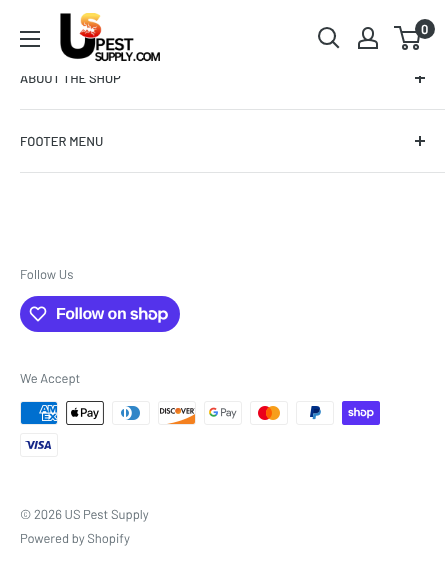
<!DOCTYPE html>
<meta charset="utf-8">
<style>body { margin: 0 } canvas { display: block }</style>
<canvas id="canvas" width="445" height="581"></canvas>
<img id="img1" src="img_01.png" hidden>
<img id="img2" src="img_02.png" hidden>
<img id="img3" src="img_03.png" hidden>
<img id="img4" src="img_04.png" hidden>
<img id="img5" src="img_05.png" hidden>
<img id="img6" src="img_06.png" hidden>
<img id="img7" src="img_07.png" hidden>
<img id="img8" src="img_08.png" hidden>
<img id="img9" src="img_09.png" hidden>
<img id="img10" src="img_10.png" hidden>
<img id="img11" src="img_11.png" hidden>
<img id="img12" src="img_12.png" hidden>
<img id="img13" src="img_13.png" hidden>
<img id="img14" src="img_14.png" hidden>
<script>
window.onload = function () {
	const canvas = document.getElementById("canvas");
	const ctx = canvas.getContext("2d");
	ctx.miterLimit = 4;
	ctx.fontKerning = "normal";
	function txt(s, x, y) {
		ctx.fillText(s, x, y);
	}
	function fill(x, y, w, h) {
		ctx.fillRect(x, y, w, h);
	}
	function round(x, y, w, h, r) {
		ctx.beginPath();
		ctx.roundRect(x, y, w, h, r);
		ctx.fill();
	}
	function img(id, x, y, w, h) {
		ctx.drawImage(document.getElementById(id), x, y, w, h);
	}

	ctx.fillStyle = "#FFFFFF";
	fill(0, 0, 445, 581);
	img("img1", 60, 13, 100, 49);
	ctx.beginPath();
	ctx.moveTo(338, 47);
	ctx.lineTo(332.5, 41.5);
	ctx.strokeStyle = "#333A3E";
	ctx.lineWidth = 2.1;
	ctx.lineCap = "square";
	ctx.stroke();
	ctx.beginPath();
	ctx.arc(327, 36, 8, 0, Math.PI * 2);
	ctx.stroke();
	img("img2", 358, 27, 20, 22);
	ctx.beginPath();
	ctx.arc(405, 47, 2, 0, Math.PI * 2);
	ctx.lineWidth = 2;
	ctx.stroke();
	ctx.beginPath();
	ctx.arc(416, 47, 2, 0, Math.PI * 2);
	ctx.stroke();
	ctx.beginPath();
	ctx.moveTo(401.5, 32);
	ctx.lineTo(419.5, 32);
	ctx.lineTo(418, 42);
	ctx.lineTo(404, 42);
	ctx.lineTo(400, 27);
	ctx.lineTo(394, 27);
	ctx.lineCap = "butt";
	ctx.stroke();
	ctx.fillStyle = "#333A3E";
	ctx.beginPath();
	ctx.arc(425, 29, 10, 0, Math.PI * 2);
	ctx.fill();
	img("img3", 20, 31, 20, 16);
	ctx.fillStyle = "#E1E3E4";
	fill(20, 109, 425, 1);
	ctx.fillStyle = "#333A3E";
	fill(419, 73, 2, 10);
	fill(415, 77, 10, 2);
	ctx.fillStyle = "#E1E3E4";
	fill(20, 172, 425, 1);
	ctx.fillStyle = "#333A3E";
	fill(419, 136, 2, 10);
	fill(415, 140, 10, 2);
	ctx.fillStyle = "#5433EB";
	round(20, 296, 160, 36, 18);
	img("img4", 29, 306, 18, 16);
	img("img5", 130, 307, 38, 16);
	img("img6", 20, 401, 38, 24);
	img("img7", 66, 401, 38, 24);
	img("img8", 112, 401, 38, 24);
	img("img9", 158, 401, 38, 24);
	img("img10", 204, 401, 38, 24);
	img("img11", 250, 401, 38, 24);
	img("img12", 296, 401, 38, 24);
	img("img13", 342, 401, 38, 24);
	img("img14", 20, 433, 38, 24);
	ctx.font = "600 13px Barlow";
	ctx.fillStyle = "#FFFFFF";
	txt("0", 421, 34);
	ctx.font = "500 13px Barlow";
	ctx.fillStyle = "#333A3E";
	txt("ABOUT THE SHOP", 20, 83);
	ctx.fillStyle = "#FFFFFF";
	fill(22, 73, 399, 3);
	ctx.fillStyle = "#333A3E";
	txt("FOOTER MENU", 20, 146);
	ctx.font = "13px Barlow";
	ctx.fillStyle = "#677279";
	txt("Follow Us", 20, 279);
	ctx.letterSpacing = "-0.5px";
	ctx.font = "bold 16px Liberation Sans";
	ctx.fillStyle = "#FFFFFF";
	txt("Follow on", 56, 319);
	ctx.letterSpacing = "0px";
	ctx.font = "13px Barlow";
	ctx.fillStyle = "#677279";
	txt("We Accept", 20, 383);
	txt("© 2026 US Pest Supply", 20, 519);
	txt("Powered by Shopify", 20, 543);
};
</script>
